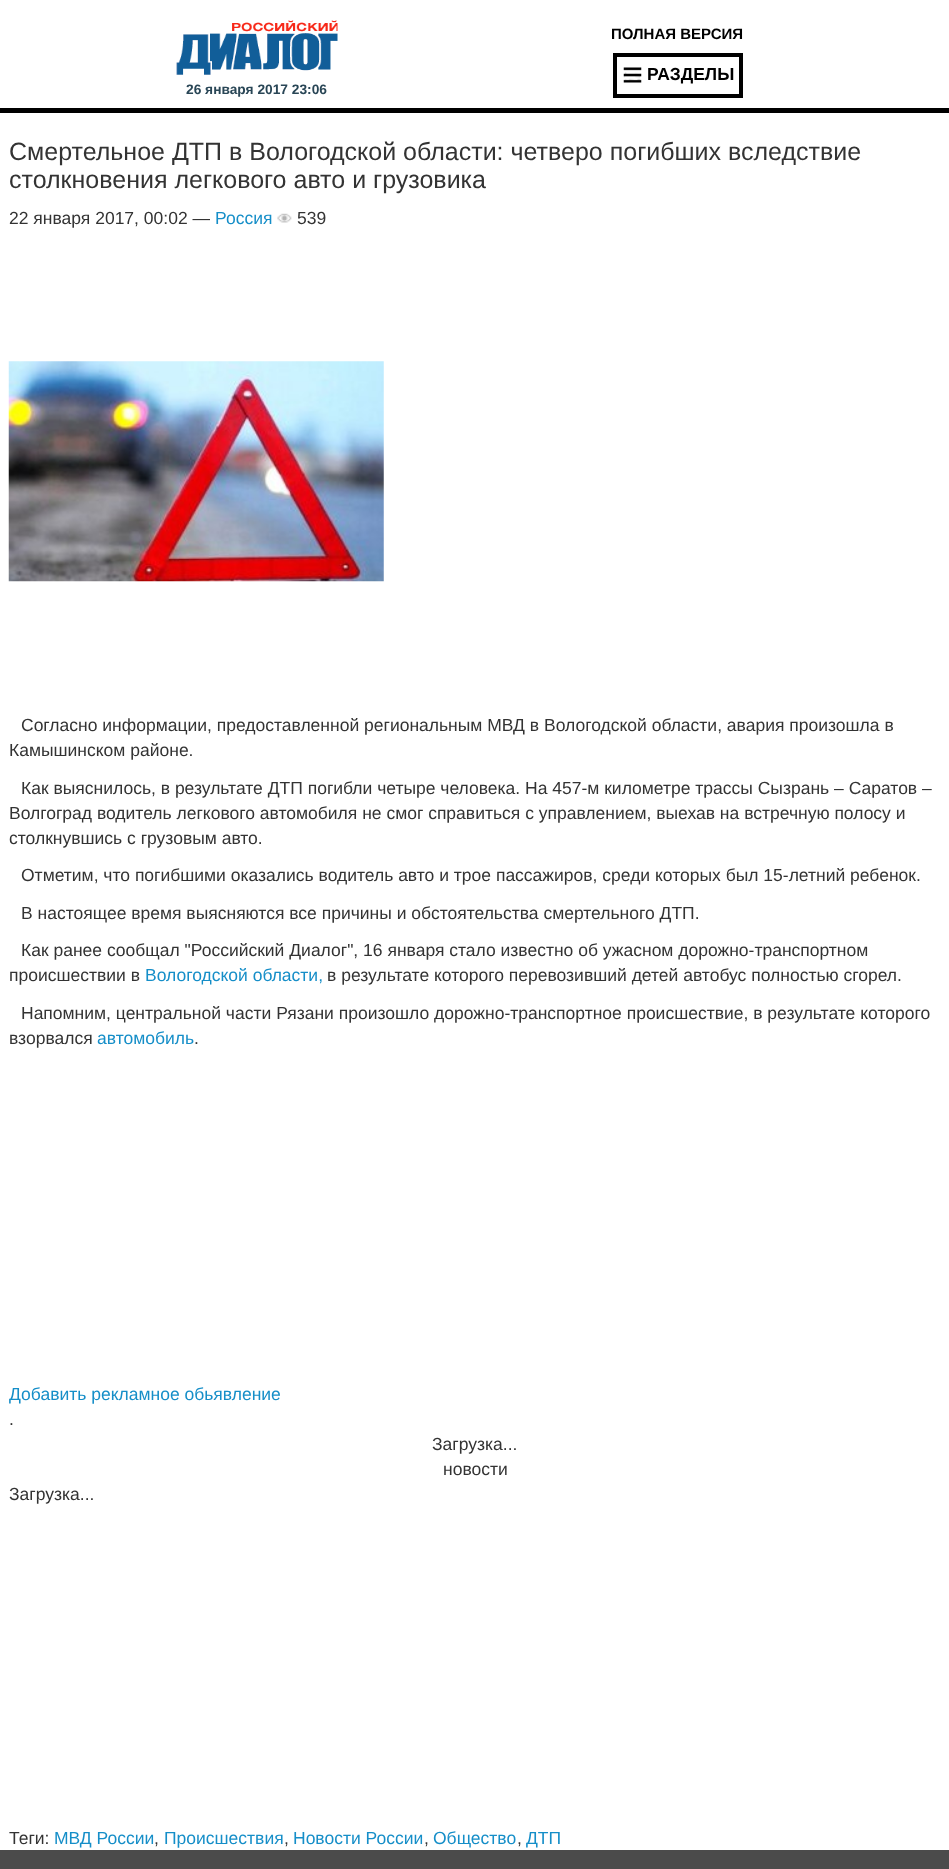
<!DOCTYPE html>
<meta charset="utf-8">
<style>body { margin: 0 } canvas { display: block }</style>
<canvas id="canvas" width="949" height="1869"></canvas>
<img id="img1" src="img_01.png" hidden>
<img id="img2" src="img_02.png" hidden>
<img id="img3" src="img_03.png" hidden>
<img id="img4" src="img_04.png" hidden>
<script>
window.onload = function () {
	const canvas = document.getElementById("canvas");
	const ctx = canvas.getContext("2d");
	ctx.miterLimit = 4;
	ctx.fontKerning = "normal";
	function txt(s, x, y) {
		ctx.fillText(s, x, y);
	}
	function fill(x, y, w, h) {
		ctx.fillRect(x, y, w, h);
	}
	function img(id, x, y, w, h) {
		ctx.drawImage(document.getElementById(id), x, y, w, h);
	}

	ctx.fillStyle = "#FFFFFF";
	fill(0, 0, 949, 1869);
	ctx.fillStyle = "#000000";
	fill(0, 108, 949, 5);
	ctx.strokeStyle = "#000000";
	ctx.lineWidth = 4;
	ctx.strokeRect(615, 55, 126, 41);
	img("img1", 623, 67, 19, 16);
	img("img2", 176, 20, 162, 55);
	img("img3", 277, 213, 15, 10);
	img("img4", 8, 361, 376, 221);
	ctx.fillStyle = "#4B4B4B";
	fill(0, 1850, 949, 19);
	ctx.font = "bold 15px Liberation Sans";
	ctx.fillStyle = "#000000";
	txt("ПОЛНАЯ ВЕРСИЯ", 611, 39);
	ctx.font = "bold 17.5px Liberation Sans";
	txt("РАЗДЕЛЫ", 647, 80);
	ctx.font = "bold 13.75px Liberation Sans";
	ctx.fillStyle = "#294656";
	txt("26 января 2017 23:06", 186, 94);
	ctx.font = "25px Liberation Sans";
	ctx.fillStyle = "#333333";
	txt("Смертельное ДТП в Вологодской области: четверо погибших вследствие", 9, 160);
	txt("столкновения легкового авто и грузовика", 9, 188);
	ctx.font = "17.5px Liberation Sans";
	txt("22 января 2017, 00:02 —", 9, 224);
	ctx.fillStyle = "#158EC8";
	txt("Россия", 215, 224);
	ctx.fillStyle = "#333333";
	txt("539", 297, 224);
	txt("Согласно информации, предоставленной региональным МВД в Вологодской области, авария произошла в", 21, 731);
	txt("Камышинском районе.", 9, 756);
	txt("Как выяснилось, в результате ДТП погибли четыре человека. На 457-м километре трассы Сызрань – Саратов –", 21, 794);
	txt("Волгоград водитель легкового автомобиля не смог справиться с управлением, выехав на встречную полосу и", 9, 819);
	txt("столкнувшись с грузовым авто.", 9, 844);
	txt("Отметим, что погибшими оказались водитель авто и трое пассажиров, среди которых был 15-летний ребенок.", 21, 881);
	txt("В настоящее время выясняются все причины и обстоятельства смертельного ДТП.", 21, 919);
	txt("Как ранее сообщал \"Российский Диалог\", 16 января стало известно об ужасном дорожно-транспортном", 21, 956);
	txt("происшествии в", 9, 981);
	ctx.fillStyle = "#158EC8";
	txt("Вологодской области,", 145, 981);
	ctx.fillStyle = "#333333";
	txt("в результате которого перевозивший детей автобус полностью сгорел.", 327, 981);
	txt("Напомним, центральной части Рязани произошло дорожно-транспортное происшествие, в результате которого", 21, 1019);
	txt("взорвался", 9, 1044);
	ctx.fillStyle = "#158EC8";
	txt("автомобиль", 97, 1044);
	ctx.fillStyle = "#333333";
	txt(".", 194, 1044);
	ctx.fillStyle = "#158EC8";
	txt("Добавить рекламное обьявление", 9, 1400);
	ctx.fillStyle = "#333333";
	txt(".", 9, 1425);
	txt("Загрузка...", 432, 1450);
	txt("новости", 443, 1475);
	txt("Загрузка...", 9, 1500);
	txt("Теги:", 9, 1844);
	ctx.fillStyle = "#158EC8";
	txt("МВД России", 54, 1844);
	ctx.fillStyle = "#333333";
	txt(",", 154, 1844);
	ctx.fillStyle = "#158EC8";
	txt("Происшествия", 164, 1844);
	ctx.fillStyle = "#333333";
	txt(",", 284, 1844);
	ctx.fillStyle = "#158EC8";
	txt("Новости России", 293, 1844);
	ctx.fillStyle = "#333333";
	txt(",", 424, 1844);
	ctx.fillStyle = "#158EC8";
	txt("Общество", 433, 1844);
	ctx.fillStyle = "#333333";
	txt(",", 517, 1844);
	ctx.fillStyle = "#158EC8";
	txt("ДТП", 526, 1844);
};
</script>
